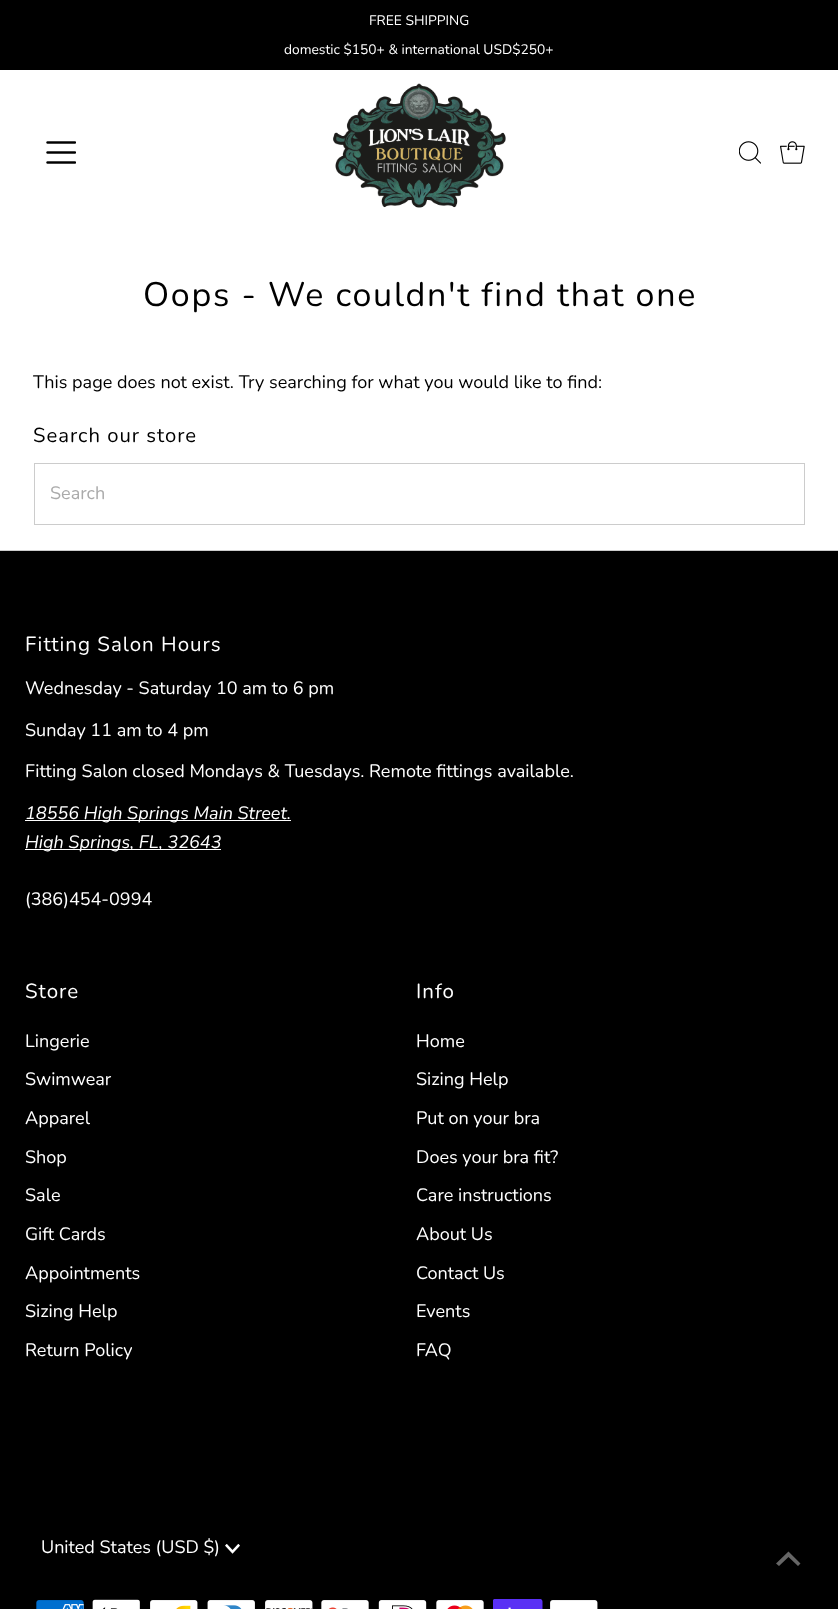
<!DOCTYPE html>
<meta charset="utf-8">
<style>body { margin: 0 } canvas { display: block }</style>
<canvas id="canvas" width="838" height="1609"></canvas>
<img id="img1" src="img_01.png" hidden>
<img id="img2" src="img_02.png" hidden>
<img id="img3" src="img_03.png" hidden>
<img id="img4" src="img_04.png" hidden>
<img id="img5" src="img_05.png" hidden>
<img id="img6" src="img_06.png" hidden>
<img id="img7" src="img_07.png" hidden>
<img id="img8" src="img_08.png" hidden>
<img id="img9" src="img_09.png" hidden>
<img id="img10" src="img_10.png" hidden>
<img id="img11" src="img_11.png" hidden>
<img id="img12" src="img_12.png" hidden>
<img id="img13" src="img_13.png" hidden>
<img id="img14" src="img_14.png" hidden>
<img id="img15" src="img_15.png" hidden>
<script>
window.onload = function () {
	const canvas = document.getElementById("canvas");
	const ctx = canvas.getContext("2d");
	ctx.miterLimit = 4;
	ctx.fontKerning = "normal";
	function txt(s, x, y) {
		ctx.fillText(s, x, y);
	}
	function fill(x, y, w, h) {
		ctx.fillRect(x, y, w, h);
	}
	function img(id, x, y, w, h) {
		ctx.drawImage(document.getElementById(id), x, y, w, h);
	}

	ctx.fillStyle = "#FFFFFF";
	fill(0, 0, 838, 1609);
	ctx.fillStyle = "#000000";
	fill(0, 0, 838, 70);
	img("img1", 46, 141, 30, 23);
	img("img2", 333, 83, 173, 125);
	img("img3", 739, 141, 22, 23);
	img("img4", 780, 141, 25, 23);
	ctx.strokeStyle = "#CCCCCC";
	ctx.strokeRect(34.5, 463.5, 770, 61);
	fill(0, 551, 838, 1058);
	ctx.fillStyle = "#CCCCCC";
	fill(0, 550, 838, 1);
	ctx.fillStyle = "#FFFFFF";
	fill(25, 820, 266, 1);
	fill(25, 849, 196, 1);
	img("img5", 225, 1544, 15, 10);
	img("img6", 36, 1600, 48, 9);
	img("img7", 92, 1599, 48, 10);
	img("img8", 150, 1600, 48, 9);
	img("img9", 207, 1600, 48, 9);
	img("img10", 265, 1600, 48, 9);
	img("img11", 321, 1600, 48, 9);
	img("img12", 378, 1600, 49, 9);
	img("img13", 436, 1600, 48, 9);
	img("img14", 493, 1599, 50, 10);
	img("img15", 550, 1600, 48, 9);
	ctx.fillStyle = "#666666";
	ctx.beginPath();
	ctx.moveTo(788.5, 1551.5);
	ctx.lineTo(776, 1563.5);
	ctx.lineTo(779, 1566);
	ctx.lineTo(788.5, 1557);
	ctx.lineTo(798, 1566);
	ctx.lineTo(800.5, 1563.5);
	ctx.closePath();
	ctx.fill();
	ctx.font = "13.8px Nunito";
	ctx.fillStyle = "#FFFFFF";
	txt("FREE SHIPPING", 369, 25);
	txt("domestic $150+ & international USD$250+", 284, 54);
	ctx.letterSpacing = "1.7px";
	ctx.font = "34px Nunito";
	ctx.fillStyle = "#000000";
	txt("Oops - We couldn't find that one", 143, 306);
	ctx.letterSpacing = "0px";
	ctx.font = "18.05px Nunito";
	txt("This page does not exist. Try searching for what you would like to find:", 33, 388);
	ctx.letterSpacing = "1px";
	ctx.font = "20.25px Nunito";
	txt("Search our store", 33, 442);
	ctx.letterSpacing = "0px";
	ctx.font = "18.05px Nunito";
	ctx.fillStyle = "#AAAAAA";
	txt("Search", 50, 499);
	ctx.letterSpacing = "1px";
	ctx.font = "20.5px Nunito";
	ctx.fillStyle = "#FFFFFF";
	txt("Fitting Salon Hours", 25, 651);
	ctx.letterSpacing = "0px";
	ctx.font = "18.05px Nunito";
	txt("Wednesday - Saturday 10 am to 6 pm", 25, 694);
	txt("Sunday 11 am to 4 pm", 25, 736);
	txt("Fitting Salon closed Mondays & Tuesdays.", 25, 777);
	txt("Remote fittings available.", 369, 777);
	ctx.font = "italic 18.05px Nunito";
	txt("18556 High Springs Main Street.", 25, 819);
	txt("High Springs, FL, 32643", 25, 848);
	ctx.font = "18.05px Nunito";
	txt("(386)454-0994", 25, 905);
	ctx.letterSpacing = "1px";
	ctx.font = "20.5px Nunito";
	txt("Store", 25, 998);
	ctx.letterSpacing = "0px";
	ctx.font = "18.05px Nunito";
	txt("Lingerie", 25, 1047);
	txt("Swimwear", 25, 1085);
	txt("Apparel", 25, 1124);
	txt("Shop", 25, 1163);
	txt("Sale", 25, 1201);
	txt("Gift Cards", 25, 1240);
	txt("Appointments", 25, 1279);
	txt("Sizing Help", 25, 1317);
	txt("Return Policy", 25, 1356);
	ctx.letterSpacing = "1px";
	ctx.font = "20.5px Nunito";
	txt("Info", 416, 998);
	ctx.letterSpacing = "0px";
	ctx.font = "18.05px Nunito";
	txt("Home", 416, 1047);
	txt("Sizing Help", 416, 1085);
	txt("Put on your bra", 416, 1124);
	txt("Does your bra fit?", 416, 1163);
	txt("Care instructions", 416, 1201);
	txt("About Us", 416, 1240);
	txt("Contact Us", 416, 1279);
	txt("Events", 416, 1317);
	txt("FAQ", 416, 1356);
	txt("United States (USD $)", 41, 1553);
};
</script>
